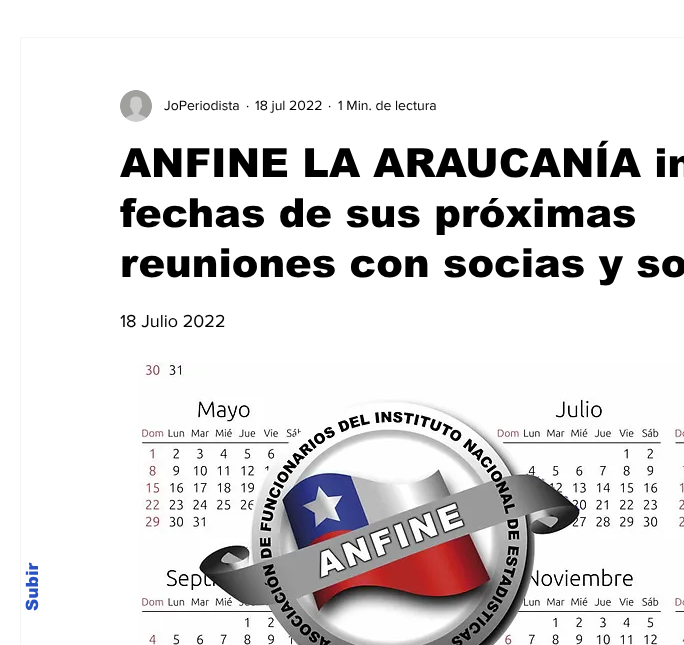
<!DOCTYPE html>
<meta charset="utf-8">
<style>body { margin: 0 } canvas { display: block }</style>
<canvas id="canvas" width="684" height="645"></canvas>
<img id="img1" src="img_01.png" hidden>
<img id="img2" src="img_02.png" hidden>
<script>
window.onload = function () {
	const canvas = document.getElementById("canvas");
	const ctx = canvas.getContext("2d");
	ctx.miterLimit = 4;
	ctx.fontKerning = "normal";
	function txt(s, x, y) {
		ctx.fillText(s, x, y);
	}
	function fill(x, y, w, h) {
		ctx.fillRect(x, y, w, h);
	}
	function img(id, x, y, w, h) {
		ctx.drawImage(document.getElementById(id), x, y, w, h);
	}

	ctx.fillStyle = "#FFFFFF";
	fill(0, 0, 684, 645);
	ctx.strokeStyle = "#F5F5F5";
	ctx.strokeRect(20.5, 37.5, 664, 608);
	img("img1", 120, 90, 32, 32);
	img("img2", 138, 362, 546, 283);
	ctx.font = "14px 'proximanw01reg'";
	ctx.fillStyle = "#000000";
	txt("JoPeriodista", 164, 110);
	txt("·", 246, 110);
	txt("18 jul 2022", 255, 110);
	txt("·", 328, 110);
	txt("1 Min. de lectura", 338, 110);
	ctx.font = "900 40px arial";
	txt("ANFINE LA ARAUCANÍA in", 120, 177);
	txt("fechas de sus próximas", 120, 227);
	txt("reuniones con socias y so", 120, 277);
	ctx.font = "18px 'proximanw01reg'";
	txt("18 Julio 2022", 120, 327);
	ctx.font = "900 17px arial";
	ctx.fillStyle = "#2A53C1";
	ctx.save();
	ctx.translate(38, 611);
	ctx.rotate(-90 * Math.PI / 180);
	ctx.fillText("Subir", 0, 0);
	ctx.restore();
};
</script>
